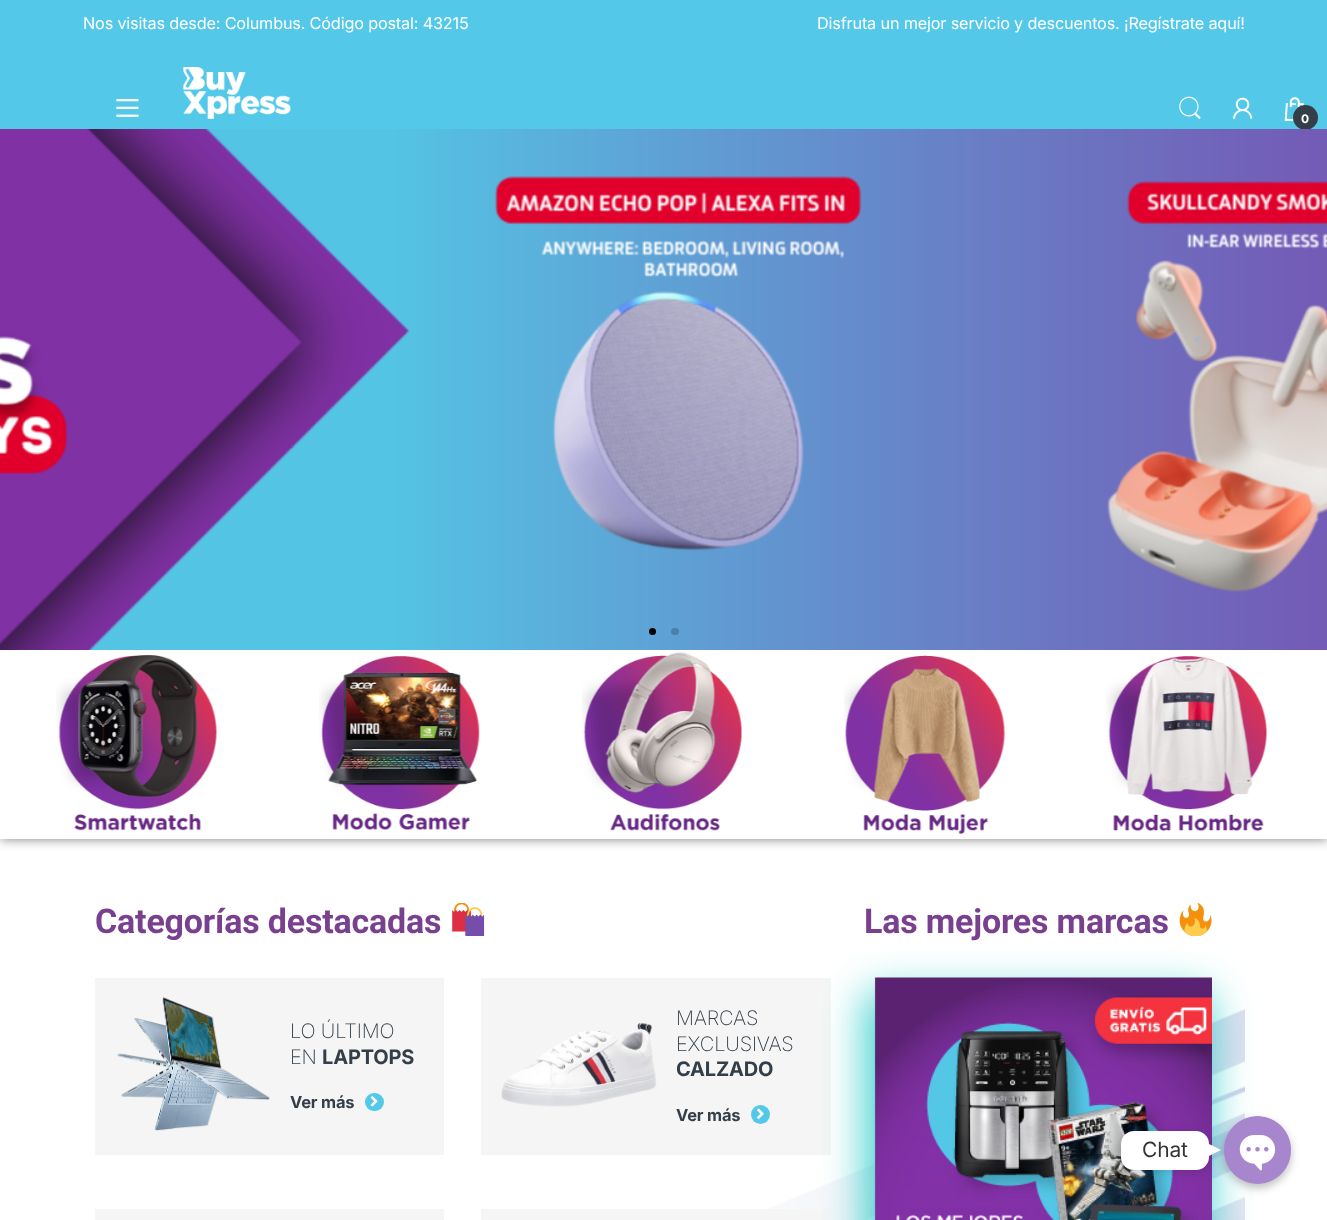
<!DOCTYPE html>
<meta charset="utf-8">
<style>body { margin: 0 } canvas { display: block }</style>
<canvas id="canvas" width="1327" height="1220"></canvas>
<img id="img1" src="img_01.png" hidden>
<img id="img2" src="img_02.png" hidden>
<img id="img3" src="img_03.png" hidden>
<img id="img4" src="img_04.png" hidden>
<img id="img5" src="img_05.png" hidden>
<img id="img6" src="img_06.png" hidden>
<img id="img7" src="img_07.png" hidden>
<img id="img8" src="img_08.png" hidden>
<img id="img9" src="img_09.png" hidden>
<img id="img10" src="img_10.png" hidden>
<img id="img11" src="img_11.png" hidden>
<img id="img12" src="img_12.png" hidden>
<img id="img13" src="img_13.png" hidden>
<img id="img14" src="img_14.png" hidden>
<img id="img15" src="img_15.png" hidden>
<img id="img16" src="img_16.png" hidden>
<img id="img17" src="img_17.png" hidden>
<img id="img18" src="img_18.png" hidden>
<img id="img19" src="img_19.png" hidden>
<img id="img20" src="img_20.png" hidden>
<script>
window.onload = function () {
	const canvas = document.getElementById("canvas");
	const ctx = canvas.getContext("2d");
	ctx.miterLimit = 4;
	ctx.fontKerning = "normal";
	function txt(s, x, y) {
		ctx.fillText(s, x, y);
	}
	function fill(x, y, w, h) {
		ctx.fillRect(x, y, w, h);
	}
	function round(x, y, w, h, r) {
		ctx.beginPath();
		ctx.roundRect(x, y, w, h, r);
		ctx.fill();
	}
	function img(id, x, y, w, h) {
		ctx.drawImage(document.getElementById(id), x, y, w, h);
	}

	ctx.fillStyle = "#FFFFFF";
	fill(0, 0, 1327, 1220);
	ctx.fillStyle = "#54C8E8";
	fill(0, 0, 1327, 129);
	img("img1", 116, 99, 23, 18);
	img("img2", 183, 67, 108, 52);
	img("img3", 1179, 96, 22, 24);
	img("img4", 1233, 97, 20, 22);
	img("img5", 1284, 97, 20, 24);
	ctx.fillStyle = "#333E48";
	ctx.beginPath();
	ctx.arc(1305.5, 117.5, 12.5, 0, Math.PI * 2);
	ctx.fill();
	ctx.save();
	ctx.beginPath();
	ctx.moveTo(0, 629);
	ctx.lineTo(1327, 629);
	ctx.lineTo(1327, 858);
	ctx.lineTo(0, 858);
	ctx.closePath();
	ctx.moveTo(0, 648);
	ctx.lineTo(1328, 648);
	ctx.lineTo(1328, 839);
	ctx.lineTo(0, 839);
	ctx.closePath();
	ctx.clip("evenodd");
	ctx.fillStyle = "rgba(0, 0, 0, 0.5)";
	ctx.filter = "blur(6px)";
	ctx.beginPath();
	ctx.rect(0, 648, 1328, 191);
	ctx.fill();
	ctx.filter = "none";
	ctx.restore();
	img("img6", 0, 129, 1327, 521);
	ctx.fillStyle = "#000000";
	ctx.beginPath();
	ctx.arc(652.5, 631.5, 3.5, 0, Math.PI * 2);
	ctx.fill();
	ctx.fillStyle = "#4C80AA";
	round(671, 628, 8, 7, 3.5);
	img("img7", 56, 654, 161, 177);
	img("img8", 319, 656, 161, 174);
	img("img9", 582, 652, 160, 179);
	img("img10", 844, 655, 162, 179);
	img("img11", 1106, 656, 161, 176);
	img("img12", 769, 1009, 476, 211);
	img("img13", 452, 903, 33, 33);
	ctx.fillStyle = "#F5F5F5";
	fill(95, 978, 349, 177);
	img("img14", 117, 997, 153, 134);
	ctx.fillStyle = "#54C8E8";
	round(365, 1093, 19, 18, 9);
	img("img15", 370, 1096, 8, 11);
	ctx.fillStyle = "#F5F5F5";
	fill(481, 978, 350, 177);
	img("img16", 501, 1023, 156, 84);
	ctx.fillStyle = "#54C8E8";
	ctx.beginPath();
	ctx.arc(760.5, 1114.5, 9.5, 0, Math.PI * 2);
	ctx.fill();
	img("img17", 757, 1108, 7, 11);
	ctx.fillStyle = "#F5F5F5";
	fill(95, 1209, 349, 11);
	fill(481, 1209, 350, 11);
	img("img18", 1179, 903, 33, 33);
	ctx.fillStyle = "rgba(0, 194, 192, 0.74)";
	ctx.filter = "blur(20.5px)";
	ctx.beginPath();
	ctx.rect(865, 993, 345, 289);
	ctx.fill();
	ctx.filter = "none";
	img("img19", 874, 977, 338, 243);
	ctx.fillStyle = "rgba(0, 0, 0, 0.25)";
	ctx.filter = "blur(4px)";
	ctx.beginPath();
	ctx.roundRect(1224, 1120, 67, 68, 33.5);
	ctx.fill();
	ctx.filter = "none";
	img("img20", 1224, 1116, 67, 68);
	ctx.fillStyle = "rgba(0, 0, 0, 0.15)";
	ctx.filter = "blur(5px)";
	ctx.beginPath();
	ctx.roundRect(1121, 1133, 88, 38, 13);
	ctx.fill();
	ctx.filter = "none";
	ctx.fillStyle = "#FFFFFF";
	round(1121, 1131, 88, 39, 13);
	ctx.beginPath();
	ctx.moveTo(1209, 1156);
	ctx.lineTo(1209, 1144);
	ctx.lineTo(1221, 1150);
	ctx.closePath();
	ctx.fill();
	ctx.letterSpacing = "-0.18px";
	ctx.font = "16.25px Inter";
	txt("Nos visitas desde: Columbus. Código postal: 43215", 83, 29);
	txt("Disfruta un mejor servicio y descuentos. ¡Regístrate aquí!", 817, 29);
	ctx.font = "bold 12px Inter";
	txt("0", 1301, 123);
	ctx.font = "bold 34px Roboto";
	ctx.fillStyle = "#7A4090";
	txt("Categorías destacadas", 95, 933);
	ctx.font = "200 20px Inter";
	ctx.fillStyle = "#333E48";
	txt("LO ÚLTIMO", 290, 1038);
	txt("EN", 290, 1064);
	ctx.font = "bold 20px Inter";
	txt("LAPTOPS", 322, 1064);
	ctx.font = "bold 16.5px Inter";
	txt("Ver más", 290, 1108);
	ctx.font = "200 20px Inter";
	txt("MARCAS", 676, 1025);
	txt("EXCLUSIVAS", 676, 1051);
	ctx.font = "bold 20px Inter";
	txt("CALZADO", 676, 1076);
	ctx.font = "bold 16.5px Inter";
	txt("Ver más", 676, 1121);
	ctx.font = "bold 34px Roboto";
	ctx.fillStyle = "#7A4090";
	txt("Las mejores marcas", 864, 933);
	ctx.font = "21px Inter";
	ctx.fillStyle = "#333333";
	txt("Chat", 1142, 1157);
};
</script>
